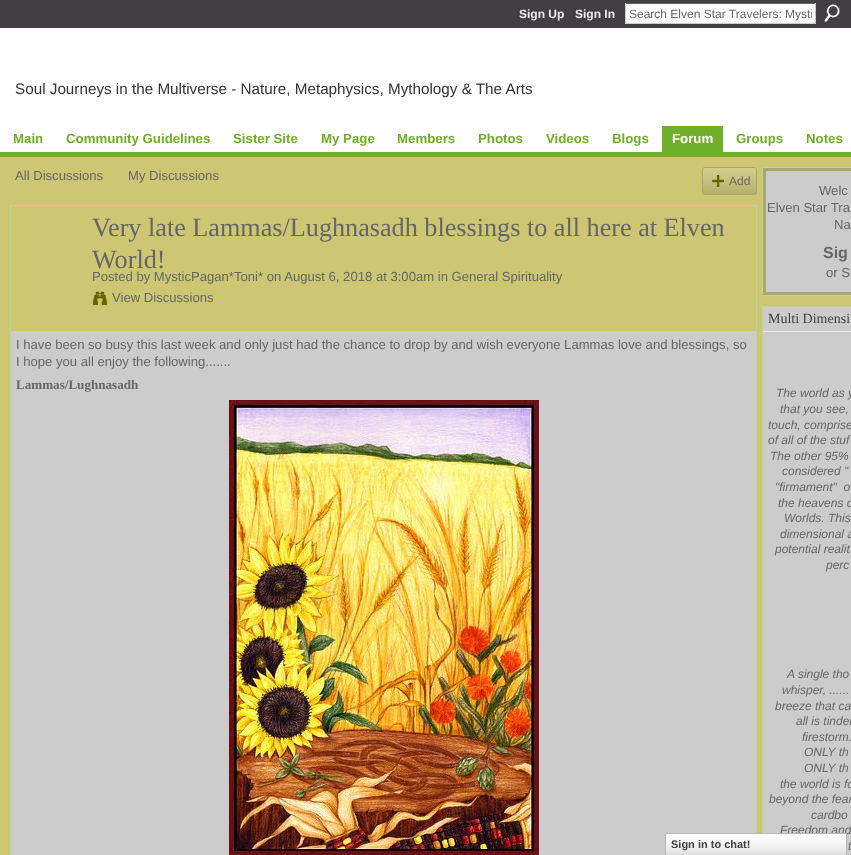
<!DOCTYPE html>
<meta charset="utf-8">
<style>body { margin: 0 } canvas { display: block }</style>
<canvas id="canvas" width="851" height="855"></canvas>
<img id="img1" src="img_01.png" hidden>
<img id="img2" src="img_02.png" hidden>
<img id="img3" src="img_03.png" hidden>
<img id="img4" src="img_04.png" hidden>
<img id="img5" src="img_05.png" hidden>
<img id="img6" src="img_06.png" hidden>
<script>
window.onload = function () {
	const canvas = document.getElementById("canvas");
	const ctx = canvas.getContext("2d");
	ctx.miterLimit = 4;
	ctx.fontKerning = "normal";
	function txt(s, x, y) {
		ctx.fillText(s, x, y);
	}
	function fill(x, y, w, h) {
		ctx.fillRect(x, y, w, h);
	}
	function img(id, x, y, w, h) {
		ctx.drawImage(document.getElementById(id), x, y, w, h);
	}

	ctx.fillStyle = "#413F42";
	fill(0, 0, 851, 855);
	ctx.fillStyle = "#FFFFFF";
	fill(626, 4, 189, 19);
	ctx.fillStyle = "#666666";
	fill(625, 3, 191, 1);
	ctx.fillStyle = "#CCCCCC";
	fill(815, 3, 1, 21);
	fill(625, 23, 191, 1);
	fill(625, 3, 1, 21);
	img("img1", 824, 4, 16, 18);
	ctx.fillStyle = "#FFFFFF";
	fill(0, 28, 851, 124);
	ctx.fillStyle = "#70AE27";
	fill(0, 152, 851, 5);
	ctx.fillStyle = "#70AF2C";
	fill(662, 126, 61, 26);
	ctx.fillStyle = "#CDC673";
	fill(0, 157, 851, 698);
	img("img2", 702, 168, 55, 27);
	ctx.beginPath();
	ctx.roundRect(702.5, 167.5, 54, 27, 2.5);
	ctx.strokeStyle = "#ABA66F";
	ctx.stroke();
	img("img3", 712, 175, 12, 12);
	ctx.strokeStyle = "#B9D797";
	ctx.strokeRect(10.5, 205.5, 746, 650);
	img("img4", 93, 291, 14, 14);
	ctx.fillStyle = "#CCCCCC";
	fill(11, 331, 745, 524);
	img("img5", 229, 400, 310, 455);
	ctx.strokeRect(762.5, 167.5, 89, 128);
	ctx.beginPath();
	ctx.rect(764.5, 169.5, 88, 124);
	ctx.fill();
	ctx.strokeStyle = "#ABA66F";
	ctx.lineWidth = 3;
	ctx.stroke();
	ctx.strokeStyle = "#B9D797";
	ctx.lineWidth = 1;
	ctx.strokeRect(762.5, 306.5, 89, 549);
	fill(763, 307, 88, 24);
	ctx.fillStyle = "#E7E7E7";
	fill(763, 331, 88, 1);
	ctx.fillStyle = "#CCCCCC";
	fill(763, 332, 88, 523);
	ctx.font = "bold 12px Liberation Sans";
	ctx.fillStyle = "#EEEEEE";
	txt("Sign Up", 519, 18);
	txt("Sign In", 575, 18);
	ctx.save();
	ctx.beginPath();
	ctx.rect(629, 7, 183, 14);
	ctx.clip();
	ctx.font = "12px Liberation Sans";
	ctx.fillStyle = "#666666";
	txt("Search Elven Star Travelers: Mysti", 629, 18);
	ctx.restore();
	ctx.font = "15.25px Liberation Sans";
	ctx.fillStyle = "#333333";
	txt("Soul Journeys in the Multiverse - Nature, Metaphysics, Mythology & The Arts", 15, 94);
	ctx.font = "bold 13.25px Liberation Sans";
	ctx.fillStyle = "#70AE27";
	txt("Main", 13, 143);
	txt("Community Guidelines", 66, 143);
	txt("Sister Site", 233, 143);
	txt("My Page", 321, 143);
	txt("Members", 397, 143);
	txt("Photos", 478, 143);
	txt("Videos", 546, 143);
	txt("Blogs", 612, 143);
	ctx.fillStyle = "#FFFFFF";
	txt("Forum", 672, 143);
	ctx.fillStyle = "#70AE27";
	txt("Groups", 736, 143);
	txt("Notes", 806, 143);
	ctx.font = "13.1px Liberation Sans";
	ctx.fillStyle = "#666666";
	txt("All Discussions", 15, 180);
	txt("My Discussions", 128, 180);
	ctx.font = "12px Liberation Sans";
	txt("Add", 729, 185);
	ctx.font = "26.2px Liberation Serif";
	txt("Very late Lammas/Lughnasadh blessings to all here at Elven", 92, 236);
	txt("World!", 92, 268);
	ctx.font = "13.1px Liberation Sans";
	txt("Posted by MysticPagan*Toni* on August 6, 2018 at 3:00am in General Spirituality", 92, 281);
	txt("View Discussions", 112, 302);
	txt("I have been so busy this last week and only just had the chance to drop by and wish everyone Lammas love and blessings, so", 16, 349);
	txt("I hope you all enjoy the following.......", 16, 366);
	ctx.font = "bold 13.1px Liberation Serif";
	txt("Lammas/Lughnasadh", 16, 389);
	ctx.font = "13.1px Liberation Sans";
	txt("Welc", 819, 195);
	txt("Elven Star Tra", 767, 212);
	txt("Na", 834, 229);
	ctx.font = "bold 16px Liberation Sans";
	txt("Sig", 823, 258);
	ctx.font = "13.1px Liberation Sans";
	txt("or Si", 826, 277);
	ctx.font = "14px Liberation Serif";
	ctx.fillStyle = "#414143";
	txt("Multi Dimensi", 768, 323);
	ctx.font = "italic 12px Liberation Sans";
	ctx.fillStyle = "#666666";
	txt("The world as y", 776, 397);
	txt("that you see,", 780, 413);
	txt("touch, comprise", 768, 429);
	txt("of all of the stuf", 768, 444);
	txt("The other 95%", 770, 460);
	txt("considered \"", 782, 475);
	txt("\"firmament\"  o", 775, 491);
	txt("the heavens o", 778, 507);
	txt("Worlds. This", 784, 522);
	txt("dimensional a", 780, 538);
	txt("potential realit", 775, 553);
	txt("perc", 826, 569);
	txt("A single tho", 787, 678);
	txt("whisper, ......", 782, 694);
	txt("breeze that ca", 775, 710);
	txt("all is tinder", 796, 725);
	txt("firestorm.", 802, 741);
	txt("ONLY th", 804, 756);
	txt("ONLY th", 804, 772);
	txt("the world is fo", 780, 788);
	txt("beyond the fear", 769, 803);
	txt("cardbo", 811, 819);
	txt("Freedom and", 780, 834);
	txt("t", 848, 850);
	img("img6", 666, 834, 180, 21);
	ctx.strokeStyle = "#B7B7B7";
	ctx.strokeRect(665.5, 833.5, 181, 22);
	ctx.font = "bold 11px Liberation Sans";
	ctx.fillStyle = "#414143";
	txt("Sign in to chat!", 671, 848);
};
</script>
